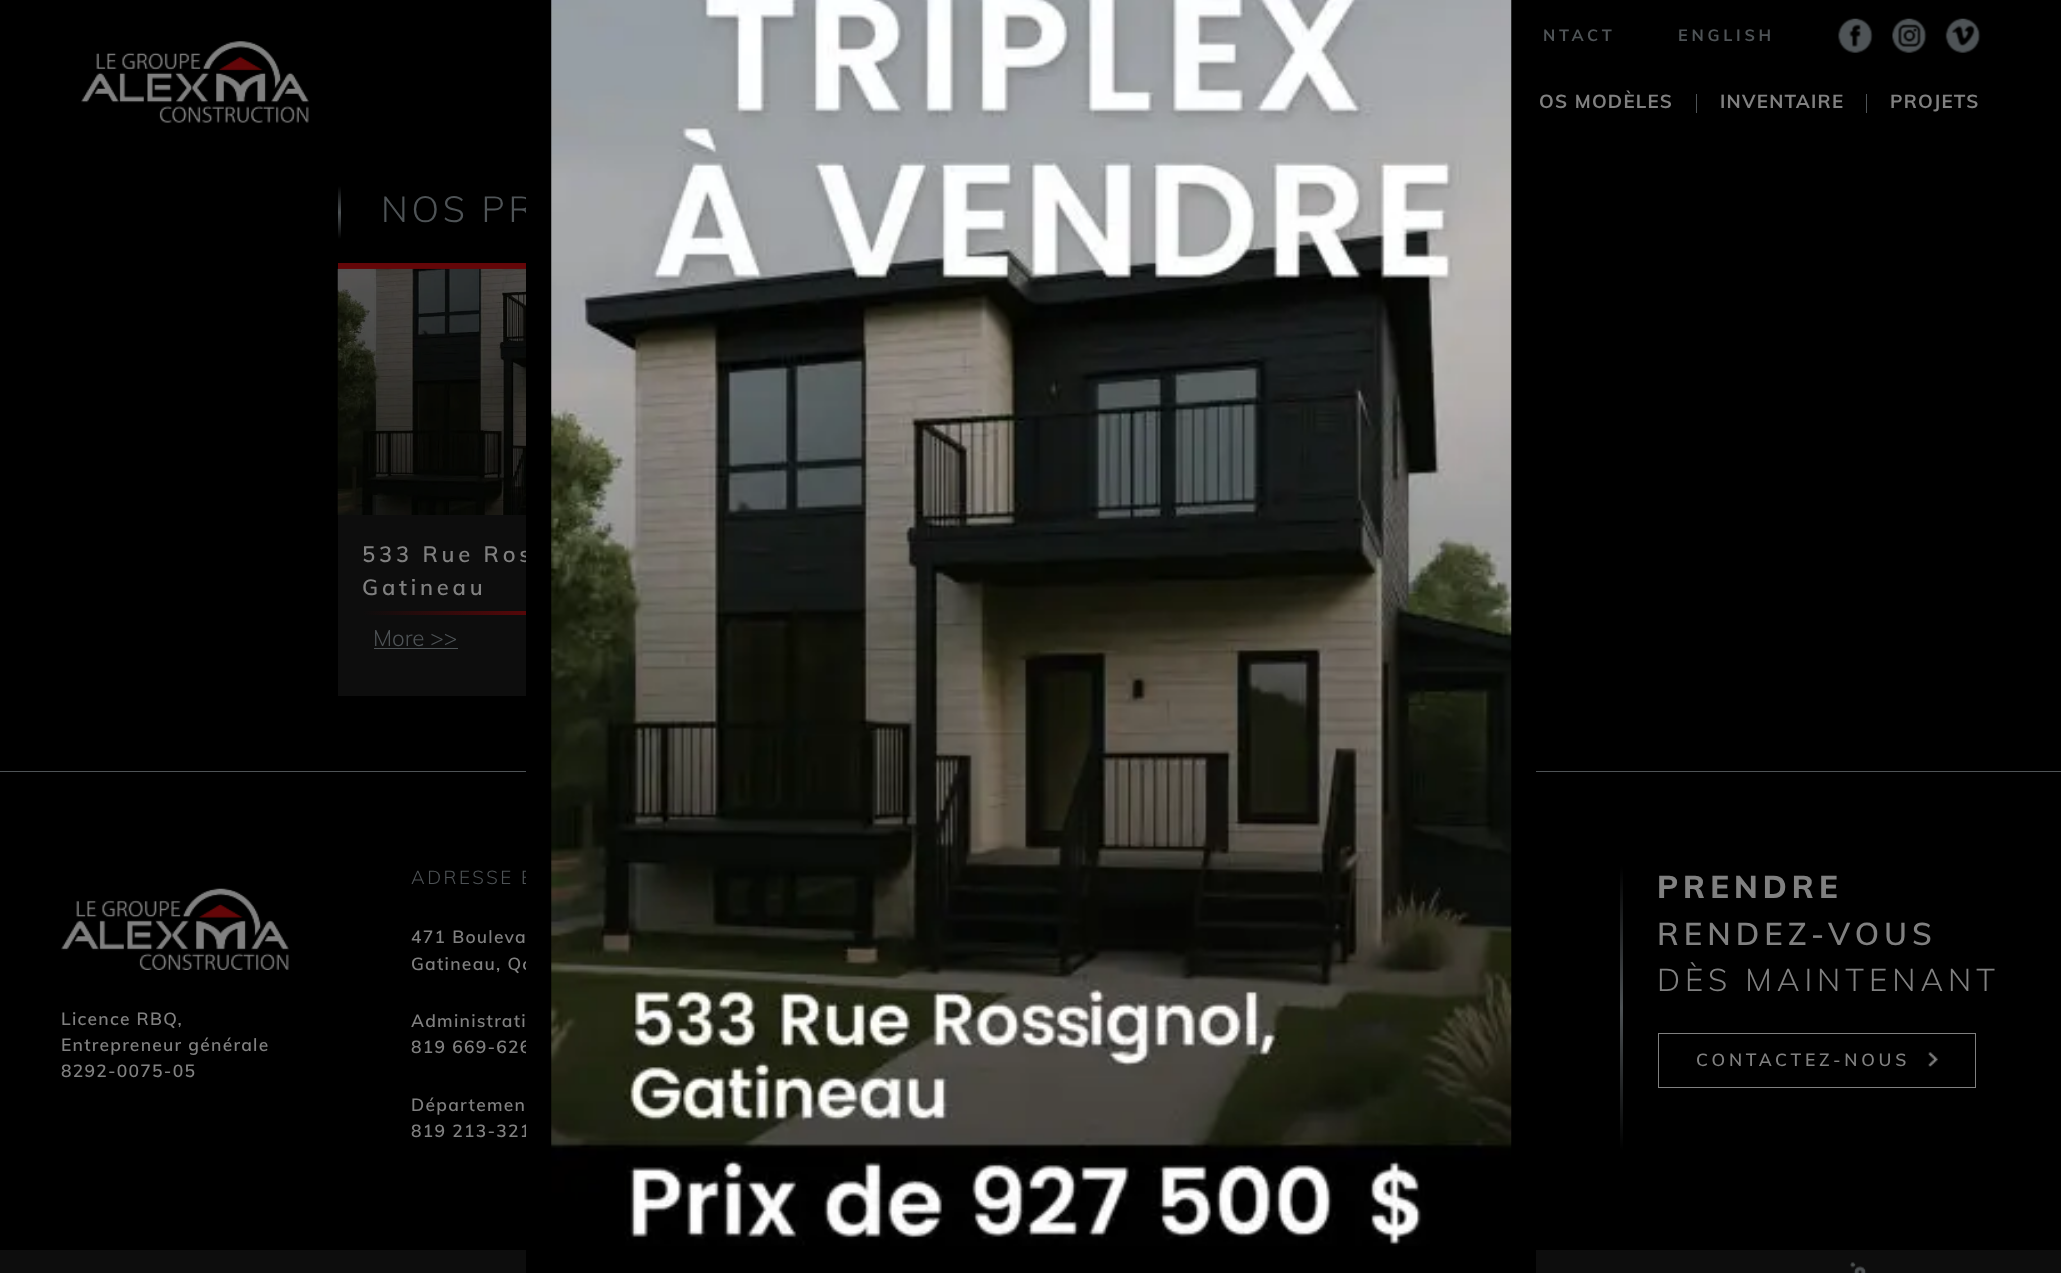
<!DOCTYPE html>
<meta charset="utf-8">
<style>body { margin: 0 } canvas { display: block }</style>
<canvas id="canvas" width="2061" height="1273"></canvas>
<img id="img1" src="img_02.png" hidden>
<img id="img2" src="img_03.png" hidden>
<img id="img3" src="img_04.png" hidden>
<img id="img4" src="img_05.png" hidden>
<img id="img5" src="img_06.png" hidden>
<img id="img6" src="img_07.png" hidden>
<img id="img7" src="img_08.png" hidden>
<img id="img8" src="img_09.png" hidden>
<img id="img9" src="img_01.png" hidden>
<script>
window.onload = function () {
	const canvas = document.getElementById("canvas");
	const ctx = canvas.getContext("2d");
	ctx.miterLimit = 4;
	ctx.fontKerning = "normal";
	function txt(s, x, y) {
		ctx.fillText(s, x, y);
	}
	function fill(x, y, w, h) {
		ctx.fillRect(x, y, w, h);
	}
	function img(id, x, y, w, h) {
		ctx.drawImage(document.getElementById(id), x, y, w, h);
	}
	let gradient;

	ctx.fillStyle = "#000000";
	fill(0, 0, 2061, 1273);
	img("img1", 81, 41, 228, 82);
	img("img2", 1838, 18, 35, 35);
	img("img3", 1892, 18, 35, 35);
	img("img4", 1945, 18, 36, 35);
	ctx.fillStyle = "#4E5356";
	fill(1696, 94, 1, 19);
	fill(1866, 94, 1, 19);
	gradient = ctx.createLinearGradient(339, 186, 339, 239);
	gradient.addColorStop(0, "#000000");
	gradient.addColorStop(0.5, "#4E5356");
	gradient.addColorStop(1, "#000000");
	ctx.fillStyle = gradient;
	fill(338, 186, 3, 53);
	ctx.fillStyle = "#0D0D0D";
	fill(338, 515, 188, 181);
	ctx.fillStyle = "#640608";
	fill(338, 263, 188, 6);
	img("img5", 337, 268, 189, 247);
	gradient = ctx.createLinearGradient(363, 613, 750, 613);
	gradient.addColorStop(0, "#0D0D0D");
	gradient.addColorStop(0.5, "#640608");
	gradient.addColorStop(1, "#0D0D0D");
	ctx.fillStyle = gradient;
	fill(363, 611, 163, 4);
	ctx.fillStyle = "#4E5356";
	fill(374, 648, 84, 1);
	fill(0, 771, 2061, 1);
	img("img6", 61, 888, 228, 82);
	gradient = ctx.createLinearGradient(1621, 866, 1621, 1150);
	gradient.addColorStop(0, "#000000");
	gradient.addColorStop(0.5, "#4E5356");
	gradient.addColorStop(1, "#000000");
	ctx.fillStyle = gradient;
	fill(1620, 866, 3, 284);
	ctx.strokeStyle = "#808080";
	ctx.strokeRect(1658.5, 1033.5, 317, 54);
	img("img7", 1928, 1052, 10, 15);
	ctx.fillStyle = "#0D0D0D";
	fill(0, 1250, 2061, 23);
	img("img8", 1850, 1262, 17, 11);
	ctx.letterSpacing = "3.75px";
	ctx.font = "bold 16.25px Muli";
	ctx.fillStyle = "#4E5356";
	txt("NTACT", 1543, 41);
	txt("ENGLISH", 1678, 41);
	ctx.letterSpacing = "1.25px";
	ctx.font = "bold 18.75px Muli";
	ctx.fillStyle = "#808080";
	txt("OS MODÈLES", 1539, 108);
	txt("INVENTAIRE", 1720, 108);
	txt("PROJETS", 1890, 108);
	ctx.letterSpacing = "3.75px";
	ctx.font = "300 36px Muli";
	ctx.fillStyle = "#4E5356";
	txt("NOS PR", 381, 222);
	ctx.font = "600 22px Muli";
	ctx.fillStyle = "#808080";
	txt("533 Rue Ros", 362, 562);
	txt("Gatineau", 362, 595);
	ctx.letterSpacing = "0px";
	ctx.font = "300 22.5px Muli";
	ctx.fillStyle = "#4E5356";
	txt("More >>", 373, 646);
	ctx.letterSpacing = "1.25px";
	ctx.font = "600 17.5px Muli";
	ctx.fillStyle = "#808080";
	txt("Licence RBQ,", 61, 1025);
	txt("Entrepreneur générale", 61, 1051);
	txt("8292-0075-05", 61, 1077);
	ctx.letterSpacing = "2.5px";
	ctx.font = "300 18.75px Muli";
	ctx.fillStyle = "#4E5356";
	txt("ADRESSE E", 411, 884);
	ctx.letterSpacing = "1.25px";
	ctx.font = "600 17.5px Muli";
	ctx.fillStyle = "#808080";
	txt("471 Bouleva", 411, 943);
	txt("Gatineau, Qc", 411, 970);
	txt("Administrati", 411, 1027);
	txt("819 669-626", 411, 1053);
	txt("Départemen", 411, 1111);
	txt("819 213-321", 411, 1137);
	ctx.fillStyle = "#000000";
	fill(526, 197, 1010, 1076);
	img("img9", 551, 0, 961, 1246);
	ctx.letterSpacing = "5px";
	ctx.font = "800 31.25px Muli";
	ctx.fillStyle = "#808080";
	txt("PRENDRE", 1657, 898);
	ctx.font = "600 31.25px Muli";
	txt("RENDEZ-VOUS", 1657, 945);
	ctx.font = "300 31.25px Muli";
	txt("DÈS MAINTENANT", 1657, 991);
	ctx.letterSpacing = "3.75px";
	ctx.font = "600 17.5px Muli";
	txt("CONTACTEZ-NOUS", 1696, 1066);
};
</script>
